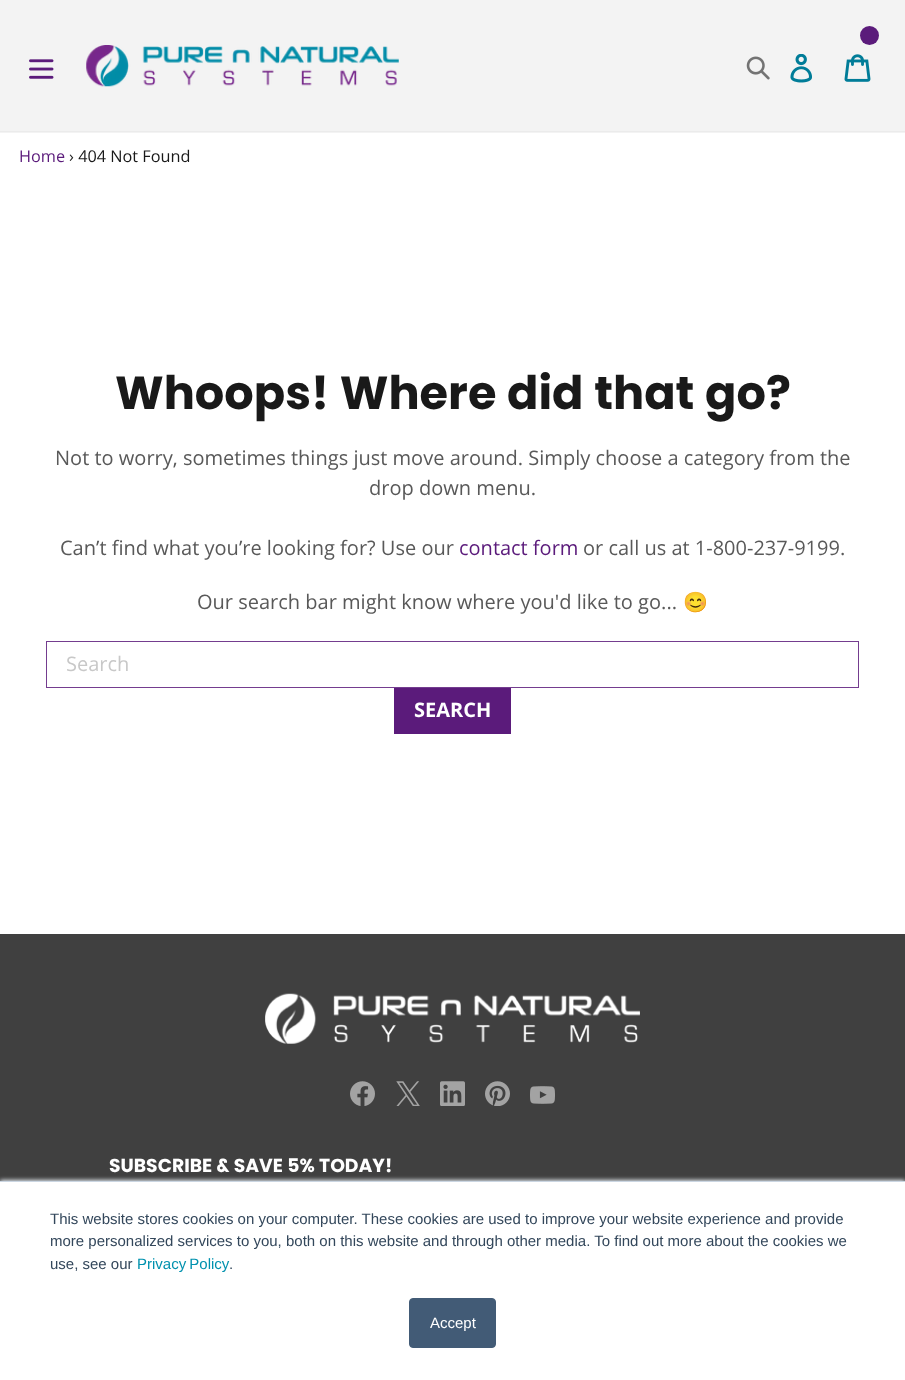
<!DOCTYPE html>
<meta charset="utf-8">
<style>body { margin: 0 } canvas { display: block }</style>
<canvas id="canvas" width="905" height="1380"></canvas>
<img id="img1" src="img_01.png" hidden>
<img id="img2" src="img_02.png" hidden>
<img id="img3" src="img_03.png" hidden>
<img id="img4" src="img_04.png" hidden>
<img id="img5" src="img_05.png" hidden>
<img id="img6" src="img_06.png" hidden>
<img id="img7" src="img_07.png" hidden>
<img id="img8" src="img_08.png" hidden>
<img id="img9" src="img_09.png" hidden>
<img id="img10" src="img_10.png" hidden>
<img id="img11" src="img_11.png" hidden>
<script>
window.onload = function () {
	const canvas = document.getElementById("canvas");
	const ctx = canvas.getContext("2d");
	ctx.miterLimit = 4;
	ctx.fontKerning = "normal";
	function txt(s, x, y) {
		ctx.fillText(s, x, y);
	}
	function fill(x, y, w, h) {
		ctx.fillRect(x, y, w, h);
	}
	function img(id, x, y, w, h) {
		ctx.drawImage(document.getElementById(id), x, y, w, h);
	}

	ctx.fillStyle = "#FFFFFF";
	fill(0, 0, 905, 1380);
	ctx.fillStyle = "#F3F3F3";
	fill(0, 0, 905, 133);
	ctx.fillStyle = "#EBEBEB";
	fill(0, 131, 905, 1);
	img("img1", 29, 59, 25, 20);
	img("img2", 86, 45, 313, 42);
	img("img3", 746, 56, 24, 24);
	img("img4", 790, 54, 22, 29);
	ctx.fillStyle = "#5B1B7B";
	ctx.beginPath();
	ctx.arc(869.5, 35.5, 9.5, 0, Math.PI * 2);
	ctx.fill();
	img("img5", 844, 54, 27, 28);
	ctx.strokeStyle = "#743D8F";
	ctx.strokeRect(46.5, 641.5, 812, 46);
	fill(394, 688, 117, 46);
	ctx.fillStyle = "#404040";
	fill(0, 934, 905, 247);
	img("img6", 265, 993, 375, 51);
	img("img7", 350, 1081, 25, 25);
	img("img8", 396, 1081, 24, 25);
	img("img9", 440, 1081, 25, 25);
	img("img10", 485, 1081, 25, 25);
	img("img11", 530, 1086, 25, 18);
	ctx.fillStyle = "#EAF0F6";
	ctx.filter = "blur(2px)";
	ctx.beginPath();
	ctx.rect(0, 1180, 905, 199);
	ctx.fill();
	ctx.filter = "none";
	ctx.fillStyle = "#FFFFFF";
	fill(0, 1182, 905, 198);
	ctx.fillStyle = "#CBD6E2";
	fill(0, 1181, 905, 1);
	ctx.fillStyle = "#425B76";
	ctx.beginPath();
	ctx.roundRect(409.5, 1298.5, 86, 49, 3.5);
	ctx.fill();
	ctx.strokeStyle = "#425B76";
	ctx.stroke();
	ctx.font = "16.25px Open Sans";
	ctx.fillStyle = "#5B1B7B";
	txt("Home", 19, 162);
	ctx.fillStyle = "#191919";
	txt("› 404 Not Found", 69, 162);
	ctx.font = "bold 46.25px Poppins";
	txt("Whoops! Where did that go?", 115, 409);
	ctx.font = "20px Open Sans";
	ctx.fillStyle = "#595959";
	txt("Not to worry, sometimes things just move around. Simply choose a category from the", 55, 465);
	txt("drop down menu.", 369, 495);
	txt("Can’t find what you’re looking for? Use our", 60, 555);
	ctx.fillStyle = "#5B1B7B";
	txt("contact form", 459, 555);
	ctx.fillStyle = "#595959";
	txt("or call us at 1-800-237-9199.", 583, 555);
	txt("Our search bar might know where you'd like to go...", 197, 609);
	ctx.font = "20px Noto Color Emoji";
	txt("😊", 683, 609);
	ctx.font = "20px Open Sans";
	ctx.fillStyle = "#C8C8C8";
	txt("Search", 66, 671);
	ctx.font = "bold 20px Open Sans";
	ctx.fillStyle = "#FFFFFF";
	txt("SEARCH", 414, 717);
	ctx.font = "bold 18.75px Poppins";
	txt("SUBSCRIBE & SAVE 5% TODAY!", 109, 1172);
	ctx.font = "15px Liberation Sans";
	ctx.fillStyle = "#33475B";
	txt("This website stores cookies on your computer. These cookies are used to improve your website experience and provide", 50, 1224);
	txt("more personalized services to you, both on this website and through other media. To find out more about the cookies we", 50, 1246);
	txt("use, see our", 50, 1269);
	ctx.wordSpacing = "-1px";
	ctx.fillStyle = "#0091AE";
	txt("Privacy Policy", 137, 1269);
	ctx.wordSpacing = "0px";
	ctx.fillStyle = "#33475B";
	txt(".", 229, 1269);
	ctx.fillStyle = "#FFFFFF";
	txt("Accept", 430, 1328);
};
</script>
